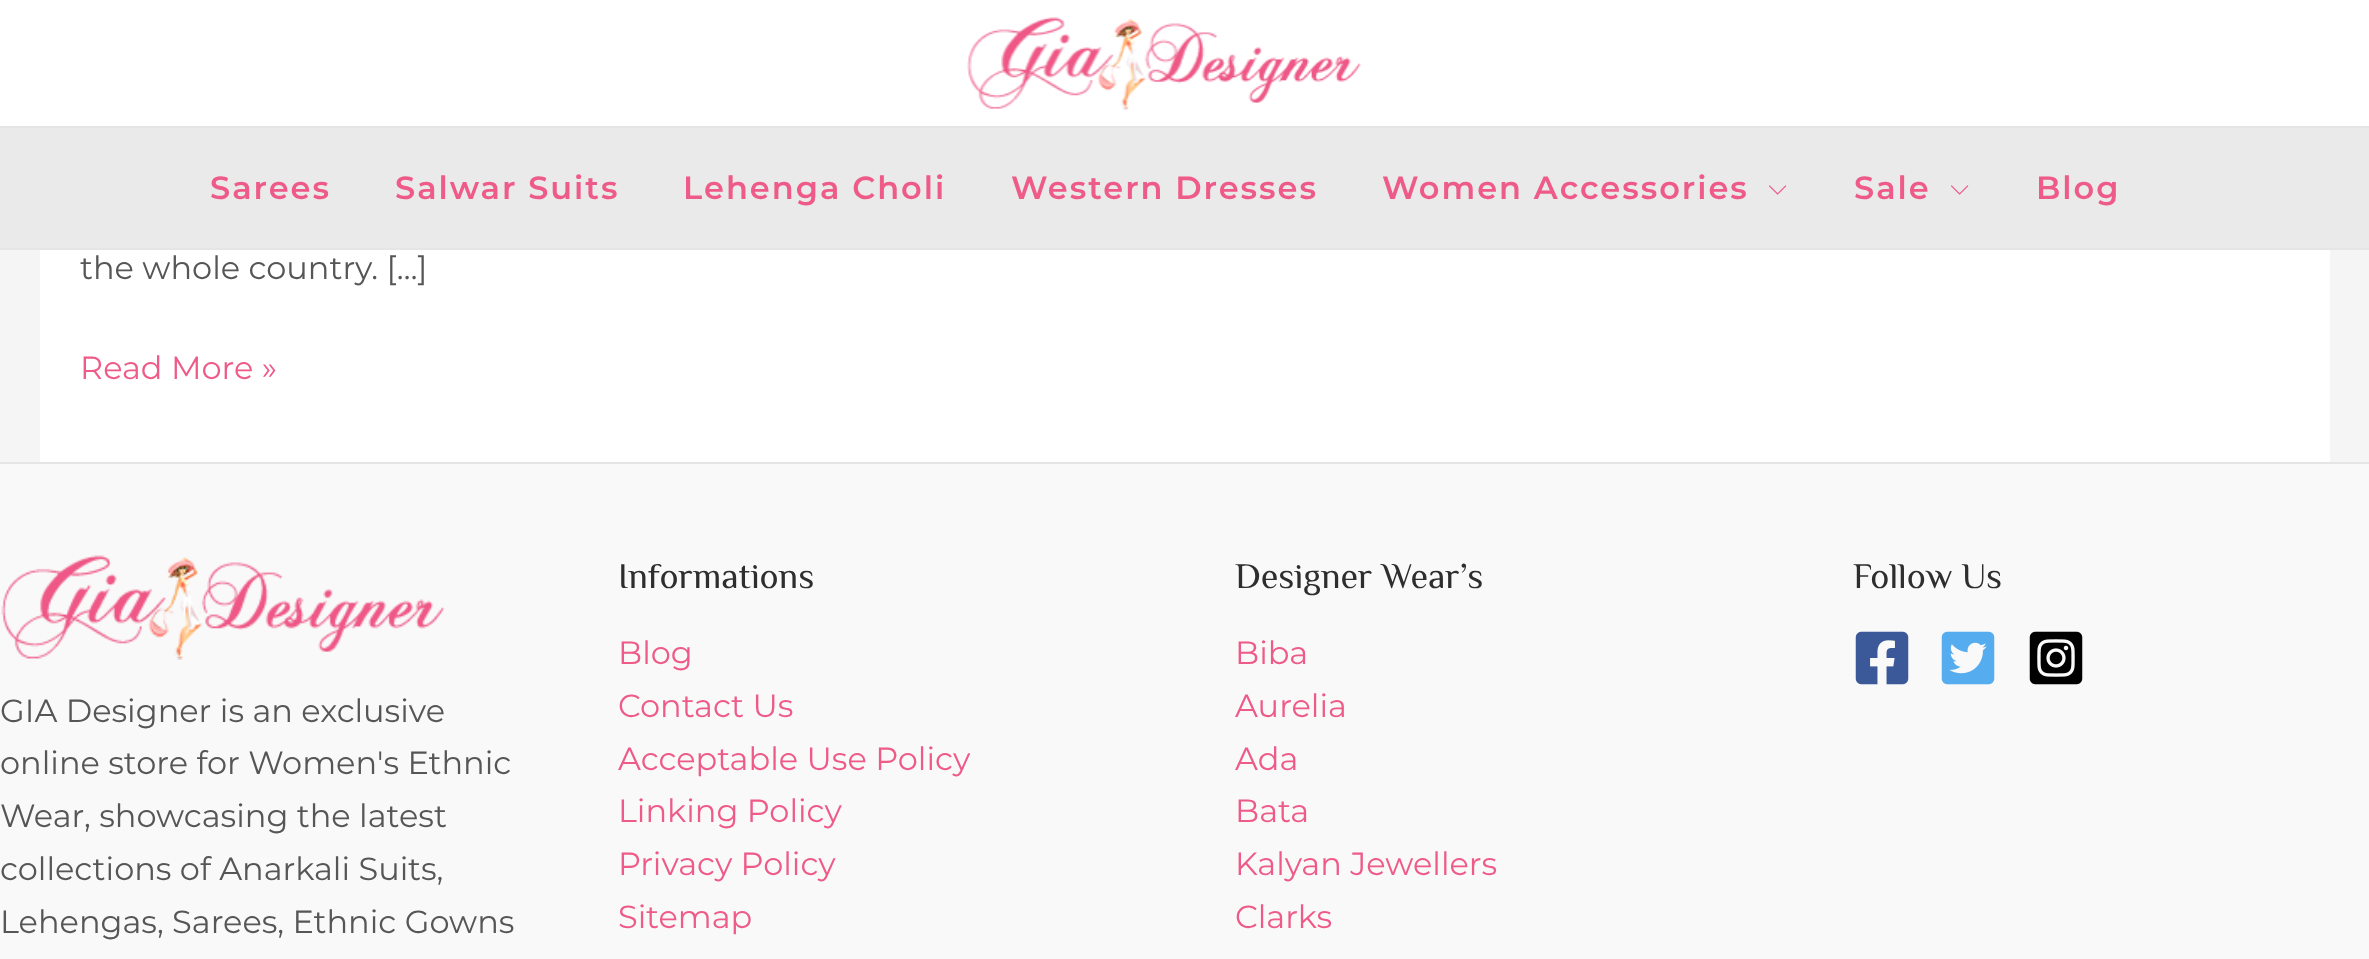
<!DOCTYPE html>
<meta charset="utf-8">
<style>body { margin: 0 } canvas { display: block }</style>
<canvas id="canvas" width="2369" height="959"></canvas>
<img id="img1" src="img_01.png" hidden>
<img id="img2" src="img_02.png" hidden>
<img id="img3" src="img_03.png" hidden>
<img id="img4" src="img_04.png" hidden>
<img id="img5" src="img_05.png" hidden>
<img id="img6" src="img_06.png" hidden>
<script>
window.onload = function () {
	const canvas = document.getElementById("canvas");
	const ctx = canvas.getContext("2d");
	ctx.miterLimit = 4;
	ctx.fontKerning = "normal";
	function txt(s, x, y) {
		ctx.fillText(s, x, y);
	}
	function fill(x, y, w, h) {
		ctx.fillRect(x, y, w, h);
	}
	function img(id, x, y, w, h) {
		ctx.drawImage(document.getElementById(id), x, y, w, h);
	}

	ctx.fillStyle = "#F5F5F5";
	fill(0, 0, 2369, 959);
	ctx.fillStyle = "#FFFFFF";
	fill(0, 0, 2369, 126);
	ctx.fillStyle = "#E5E5E5";
	fill(0, 126, 2369, 2);
	img("img1", 967, 17, 395, 94);
	ctx.fillStyle = "#EAEAEA";
	fill(0, 128, 2369, 120);
	ctx.fillStyle = "#E5E5E5";
	fill(0, 248, 2369, 2);
	img("img2", 1769, 185, 18, 10);
	img("img2", 1951, 185, 18, 10);
	ctx.fillStyle = "#FFFFFF";
	fill(40, 250, 2290, 212);
	ctx.fillStyle = "#F9F9F9";
	fill(0, 464, 2369, 495);
	ctx.fillStyle = "#E5E5E5";
	fill(0, 462, 2369, 2);
	img("img3", 1855, 631, 54, 54);
	img("img4", 1941, 631, 54, 54);
	img("img5", 2029, 631, 54, 54);
	img("img6", 1, 555, 444, 105);
	ctx.letterSpacing = "2px";
	ctx.font = "600 32px Montserrat";
	ctx.fillStyle = "#EE5B89";
	txt("Sarees", 210, 199);
	txt("Salwar Suits", 395, 199);
	txt("Lehenga Choli", 683, 199);
	txt("Western Dresses", 1011, 199);
	txt("Women Accessories", 1382, 199);
	txt("Sale", 1854, 199);
	txt("Blog", 2036, 199);
	ctx.letterSpacing = "0px";
	ctx.font = "32px Montserrat";
	ctx.fillStyle = "#565656";
	txt("the whole country. […]", 80, 279);
	ctx.fillStyle = "#EE5B89";
	txt("Read More »", 80, 379);
	ctx.font = "36px El Messiri";
	ctx.fillStyle = "#2E2E2E";
	txt("Informations", 618, 588);
	ctx.font = "32px Montserrat";
	ctx.fillStyle = "#EE5B89";
	txt("Blog", 618, 664);
	txt("Contact Us", 618, 717);
	txt("Acceptable Use Policy", 618, 770);
	txt("Linking Policy", 618, 822);
	txt("Privacy Policy", 618, 875);
	txt("Sitemap", 618, 928);
	ctx.font = "36px El Messiri";
	ctx.fillStyle = "#2E2E2E";
	txt("Designer Wear’s", 1235, 588);
	ctx.font = "32px Montserrat";
	ctx.fillStyle = "#EE5B89";
	txt("Biba", 1235, 664);
	txt("Aurelia", 1235, 717);
	txt("Ada", 1235, 770);
	txt("Bata", 1235, 822);
	txt("Kalyan Jewellers", 1235, 875);
	txt("Clarks", 1235, 928);
	ctx.font = "36px El Messiri";
	ctx.fillStyle = "#2E2E2E";
	txt("Follow Us", 1853, 588);
	ctx.font = "32px Montserrat";
	ctx.fillStyle = "#565656";
	txt("GIA Designer is an exclusive", 0, 722);
	txt("online store for Women's Ethnic", 0, 774);
	txt("Wear, showcasing the latest", 0, 827);
	txt("collections of Anarkali Suits,", 0, 880);
	txt("Lehengas, Sarees, Ethnic Gowns", 0, 933);
};
</script>
